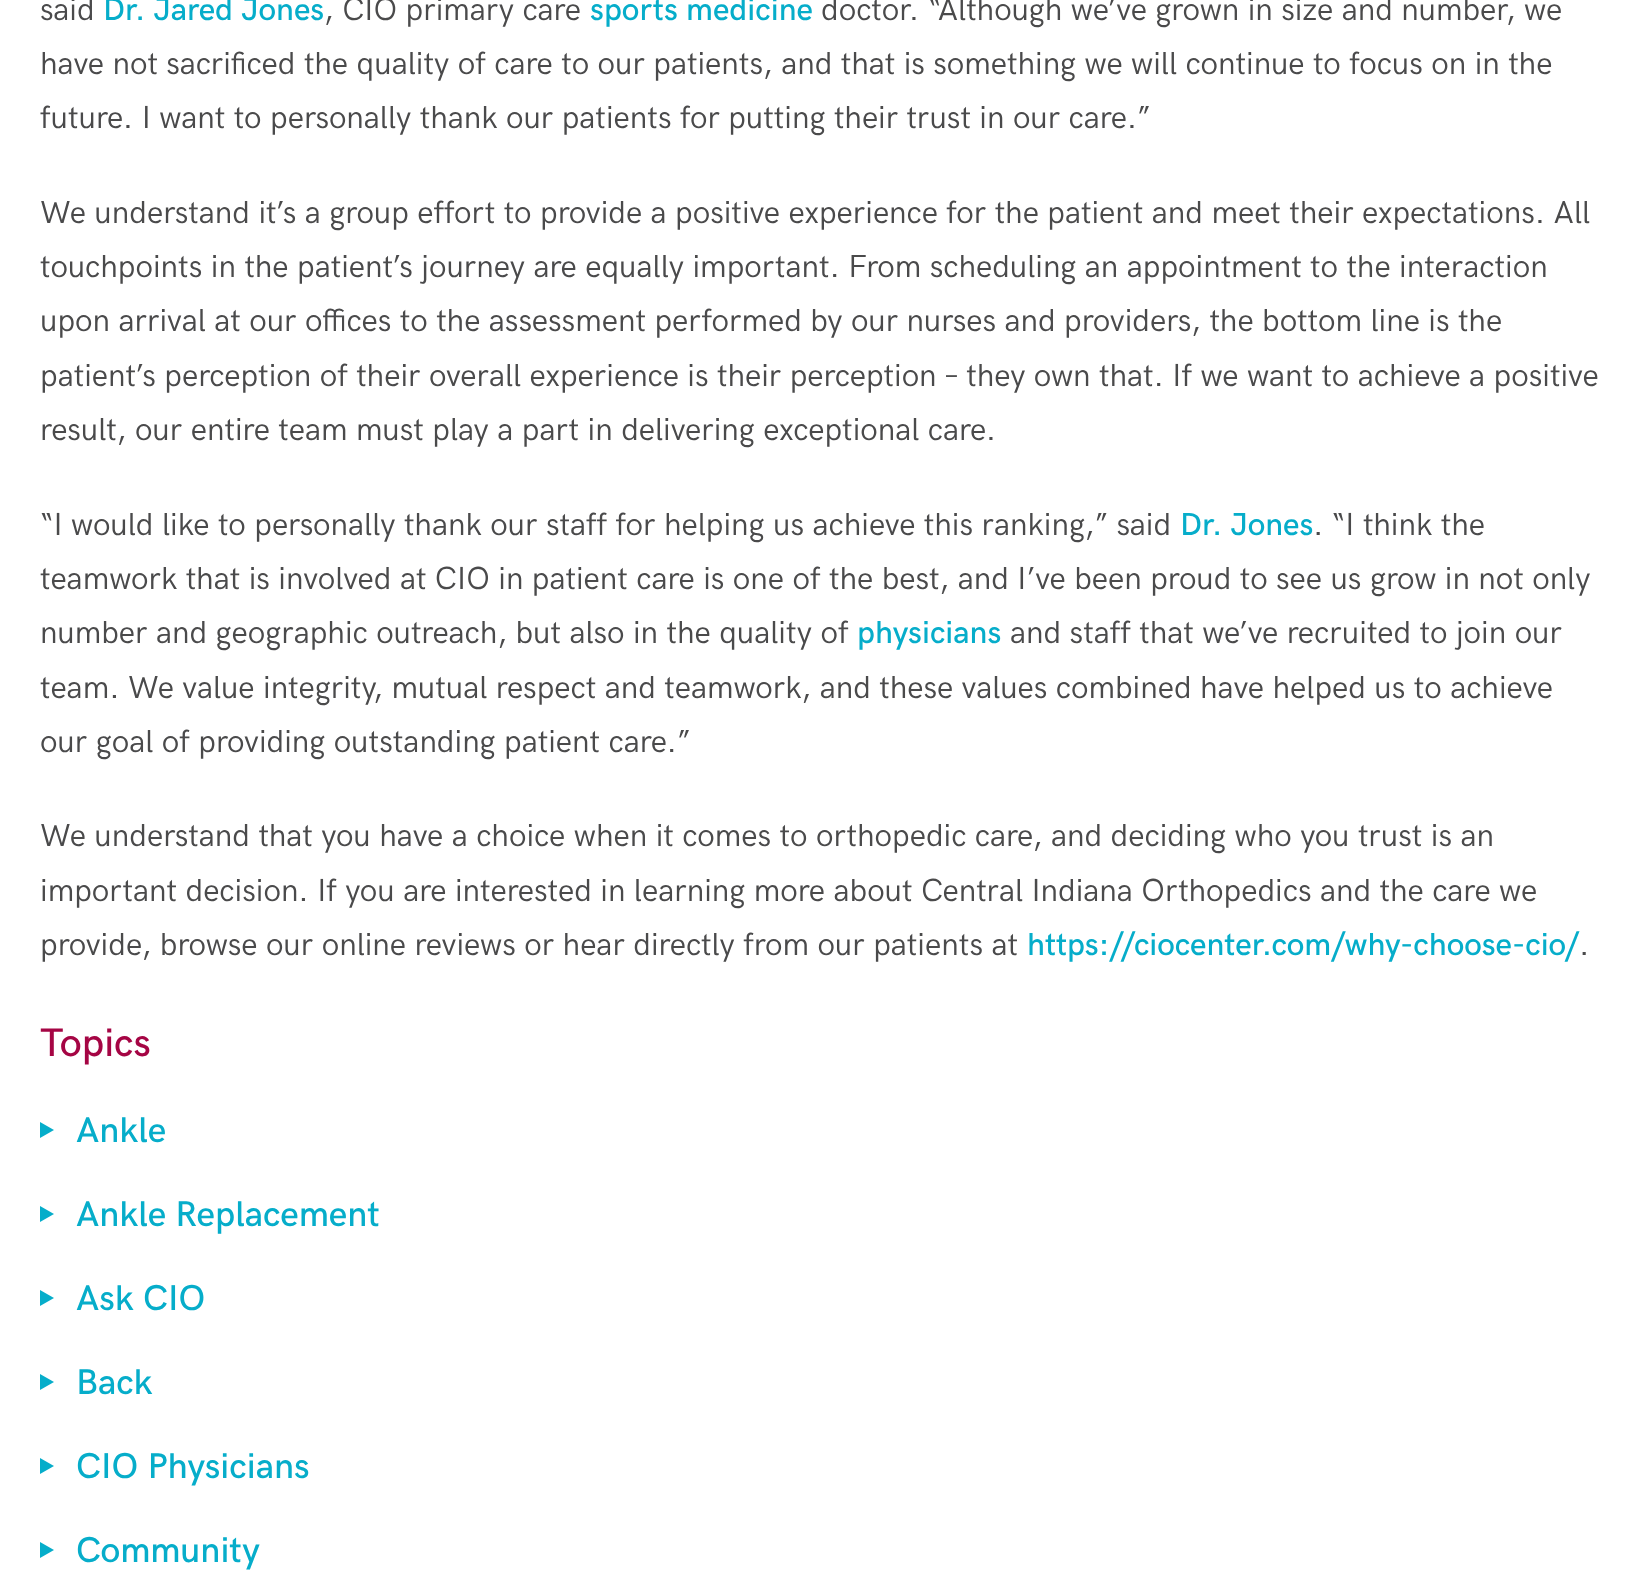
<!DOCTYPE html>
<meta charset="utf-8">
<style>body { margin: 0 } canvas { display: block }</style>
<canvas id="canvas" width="1644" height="1594"></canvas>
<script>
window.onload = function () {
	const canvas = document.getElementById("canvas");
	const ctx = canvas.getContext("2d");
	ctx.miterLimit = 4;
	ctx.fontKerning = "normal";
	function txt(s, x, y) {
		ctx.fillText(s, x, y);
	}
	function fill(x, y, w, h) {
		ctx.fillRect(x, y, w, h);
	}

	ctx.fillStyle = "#FFFFFF";
	fill(0, 0, 1644, 1594);
	ctx.fillStyle = "#06ADCA";
	ctx.beginPath();
	ctx.moveTo(40, 1138);
	ctx.lineTo(40, 1122);
	ctx.lineTo(54, 1130);
	ctx.closePath();
	ctx.fill();
	ctx.beginPath();
	ctx.moveTo(40, 1222);
	ctx.lineTo(40, 1206);
	ctx.lineTo(54, 1214);
	ctx.closePath();
	ctx.fill();
	ctx.beginPath();
	ctx.moveTo(40, 1306);
	ctx.lineTo(40, 1290);
	ctx.lineTo(54, 1298);
	ctx.closePath();
	ctx.fill();
	ctx.beginPath();
	ctx.moveTo(40, 1390);
	ctx.lineTo(40, 1374);
	ctx.lineTo(54, 1382);
	ctx.closePath();
	ctx.fill();
	ctx.beginPath();
	ctx.moveTo(40, 1474);
	ctx.lineTo(40, 1458);
	ctx.lineTo(54, 1466);
	ctx.closePath();
	ctx.fill();
	ctx.beginPath();
	ctx.moveTo(40, 1558);
	ctx.lineTo(40, 1542);
	ctx.lineTo(54, 1550);
	ctx.closePath();
	ctx.fill();
	ctx.font = "32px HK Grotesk";
	ctx.fillStyle = "#4A4A4B";
	txt("said", 40, 20);
	ctx.font = "500 32px HK Grotesk";
	ctx.fillStyle = "#06ADCA";
	txt("Dr. Jared Jones", 103, 20);
	ctx.font = "32px HK Grotesk";
	ctx.fillStyle = "#4A4A4B";
	txt(", CIO primary care", 324, 20);
	ctx.font = "500 32px HK Grotesk";
	ctx.fillStyle = "#06ADCA";
	txt("sports medicine", 590, 20);
	ctx.font = "32px HK Grotesk";
	ctx.fillStyle = "#4A4A4B";
	txt("doctor. “Although we’ve grown in size and number, we", 821, 20);
	txt("have not sacrificed the quality of care to our patients, and that is something we will continue to focus on in the", 40, 74);
	txt("future. I want to personally thank our patients for putting their trust in our care.”", 40, 128);
	txt("We understand it’s a group effort to provide a positive experience for the patient and meet their expectations. All", 40, 223);
	txt("touchpoints in the patient’s journey are equally important. From scheduling an appointment to the interaction", 40, 277);
	txt("upon arrival at our offices to the assessment performed by our nurses and providers, the bottom line is the", 40, 331);
	txt("patient’s perception of their overall experience is their perception – they own that. If we want to achieve a positive", 40, 386);
	txt("result, our entire team must play a part in delivering exceptional care.", 40, 440);
	txt("“I would like to personally thank our staff for helping us achieve this ranking,” said", 40, 535);
	ctx.font = "500 32px HK Grotesk";
	ctx.fillStyle = "#06ADCA";
	txt("Dr. Jones", 1180, 535);
	ctx.font = "32px HK Grotesk";
	ctx.fillStyle = "#4A4A4B";
	txt(". “I think the", 1313, 535);
	txt("teamwork that is involved at CIO in patient care is one of the best, and I’ve been proud to see us grow in not only", 40, 589);
	txt("number and geographic outreach, but also in the quality of", 40, 643);
	ctx.font = "500 32px HK Grotesk";
	ctx.fillStyle = "#06ADCA";
	txt("physicians", 857, 643);
	ctx.font = "32px HK Grotesk";
	ctx.fillStyle = "#4A4A4B";
	txt("and staff that we’ve recruited to join our", 1010, 643);
	txt("team. We value integrity, mutual respect and teamwork, and these values combined have helped us to achieve", 40, 698);
	txt("our goal of providing outstanding patient care.”", 40, 752);
	txt("We understand that you have a choice when it comes to orthopedic care, and deciding who you trust is an", 40, 846);
	txt("important decision. If you are interested in learning more about Central Indiana Orthopedics and the care we", 40, 901);
	txt("provide, browse our online reviews or hear directly from our patients at", 40, 955);
	ctx.font = "500 32px HK Grotesk";
	ctx.fillStyle = "#06ADCA";
	txt("https://ciocenter.com/why-choose-cio/", 1027, 955);
	ctx.font = "32px HK Grotesk";
	ctx.fillStyle = "#4A4A4B";
	txt(".", 1579, 955);
	ctx.font = "500 40px HK Grotesk";
	ctx.fillStyle = "#A50544";
	txt("Topics", 40, 1056);
	ctx.font = "500 36px HK Grotesk";
	ctx.fillStyle = "#06ADCA";
	txt("Ankle", 76, 1142);
	txt("Ankle Replacement", 76, 1226);
	txt("Ask CIO", 76, 1310);
	txt("Back", 76, 1394);
	txt("CIO Physicians", 76, 1478);
	txt("Community", 76, 1562);
};
</script>
